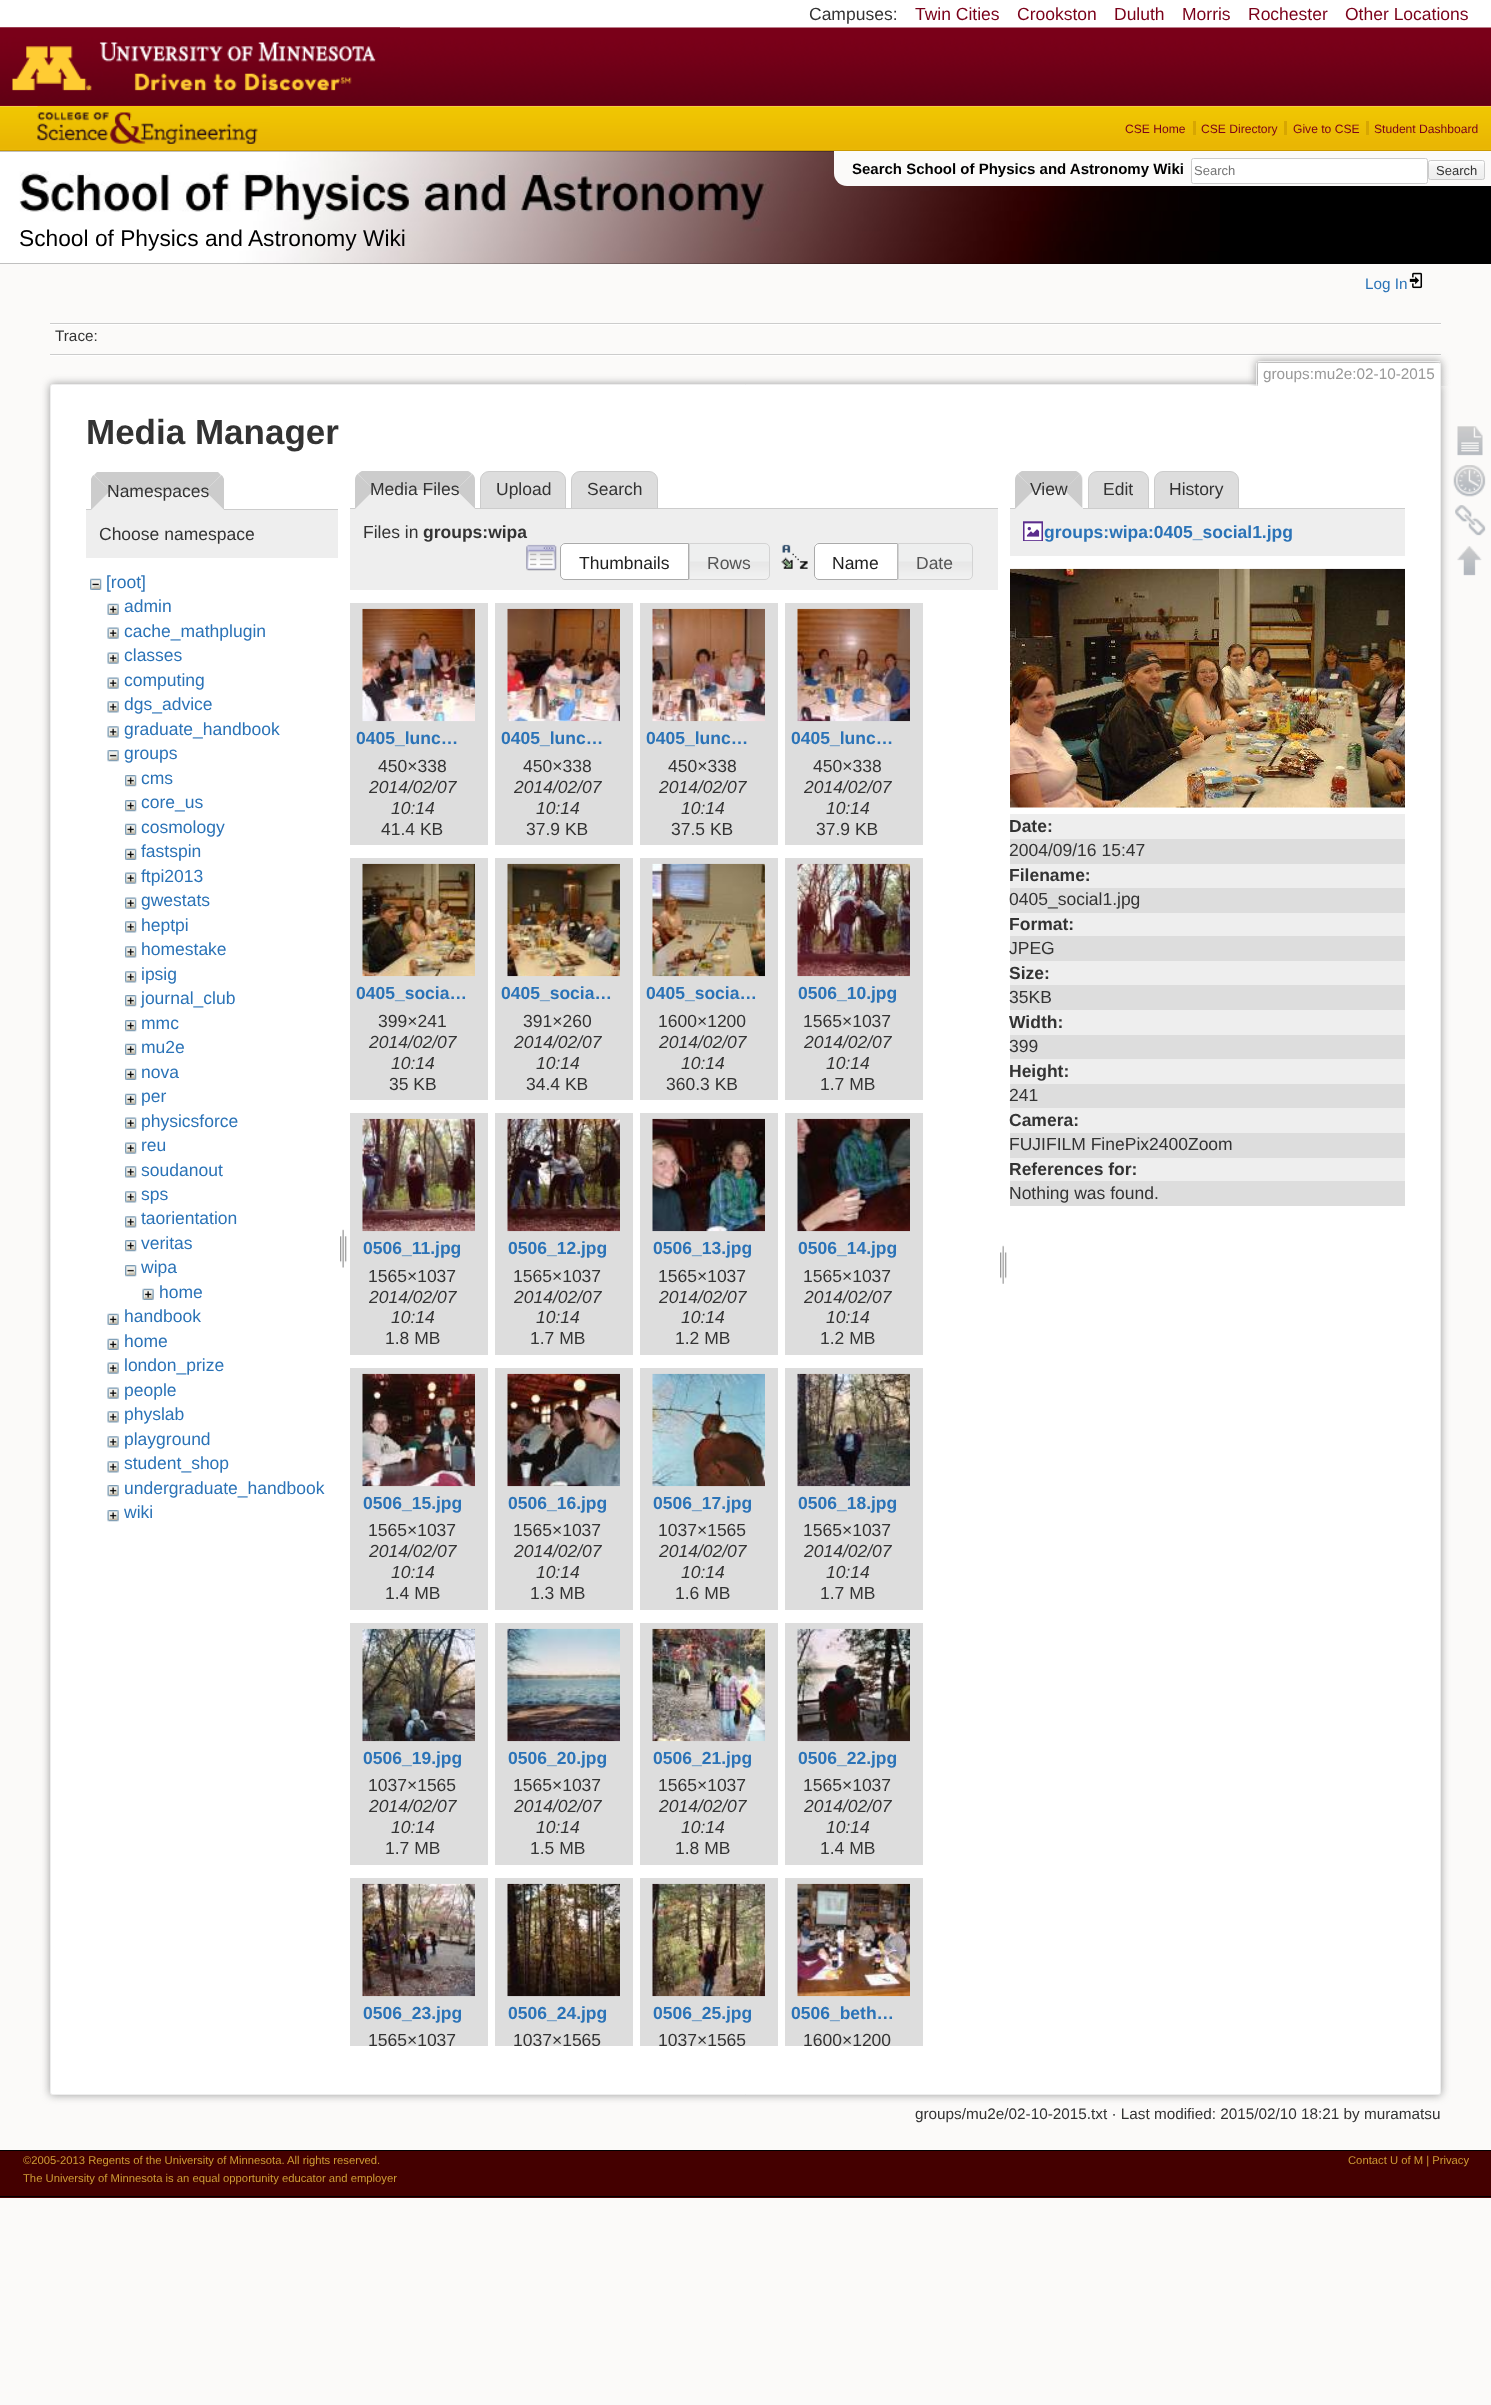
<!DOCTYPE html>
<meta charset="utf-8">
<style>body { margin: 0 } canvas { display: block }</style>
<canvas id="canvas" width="1491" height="2405"></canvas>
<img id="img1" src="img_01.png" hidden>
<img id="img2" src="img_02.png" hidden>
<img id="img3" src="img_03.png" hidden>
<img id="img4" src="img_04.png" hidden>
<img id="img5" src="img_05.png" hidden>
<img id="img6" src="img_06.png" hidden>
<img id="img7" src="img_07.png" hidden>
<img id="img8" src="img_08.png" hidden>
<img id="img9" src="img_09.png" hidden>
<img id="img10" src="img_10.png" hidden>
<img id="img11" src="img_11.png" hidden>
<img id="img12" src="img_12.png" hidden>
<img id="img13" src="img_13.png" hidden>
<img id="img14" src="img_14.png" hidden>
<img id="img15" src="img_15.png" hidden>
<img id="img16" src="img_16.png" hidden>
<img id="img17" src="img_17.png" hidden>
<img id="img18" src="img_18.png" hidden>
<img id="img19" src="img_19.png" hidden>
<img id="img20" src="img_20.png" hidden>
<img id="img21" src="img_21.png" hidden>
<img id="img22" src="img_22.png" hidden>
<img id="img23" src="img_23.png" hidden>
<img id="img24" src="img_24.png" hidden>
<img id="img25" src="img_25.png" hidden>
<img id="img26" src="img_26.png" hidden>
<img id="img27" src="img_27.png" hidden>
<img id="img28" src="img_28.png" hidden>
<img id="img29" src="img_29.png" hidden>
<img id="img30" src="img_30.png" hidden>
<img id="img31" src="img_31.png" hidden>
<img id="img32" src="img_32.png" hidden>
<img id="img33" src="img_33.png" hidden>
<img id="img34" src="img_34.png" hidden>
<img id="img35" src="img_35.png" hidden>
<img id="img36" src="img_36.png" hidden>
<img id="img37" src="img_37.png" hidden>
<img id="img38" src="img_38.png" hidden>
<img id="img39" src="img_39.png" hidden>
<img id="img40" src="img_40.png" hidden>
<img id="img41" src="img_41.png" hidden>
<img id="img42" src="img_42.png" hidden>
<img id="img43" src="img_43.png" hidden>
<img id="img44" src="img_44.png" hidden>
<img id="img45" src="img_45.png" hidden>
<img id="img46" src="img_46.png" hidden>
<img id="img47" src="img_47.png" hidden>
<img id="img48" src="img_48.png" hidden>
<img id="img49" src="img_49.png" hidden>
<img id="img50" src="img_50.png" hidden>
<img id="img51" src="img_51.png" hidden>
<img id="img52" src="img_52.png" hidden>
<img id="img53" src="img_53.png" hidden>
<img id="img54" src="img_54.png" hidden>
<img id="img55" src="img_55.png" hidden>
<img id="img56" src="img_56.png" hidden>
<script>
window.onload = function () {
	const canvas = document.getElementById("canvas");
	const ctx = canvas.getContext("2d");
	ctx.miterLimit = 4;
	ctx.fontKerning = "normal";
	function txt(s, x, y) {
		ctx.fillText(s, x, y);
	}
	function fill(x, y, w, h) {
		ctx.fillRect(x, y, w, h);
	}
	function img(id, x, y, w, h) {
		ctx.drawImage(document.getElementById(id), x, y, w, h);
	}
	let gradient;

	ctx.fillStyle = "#FBFAF9";
	fill(0, 0, 1491, 2405);
	ctx.fillStyle = "#FFFFFF";
	fill(0, 0, 1491, 28);
	ctx.fillStyle = "#7A0019";
	fill(0, 105, 1491, 1);
	img("img1", 0, 27, 1491, 78);
	img("img2", 0, 27, 400, 64);
	img("img3", 0, 106, 1491, 44);
	ctx.fillStyle = "#CB9901";
	fill(0, 150, 1491, 1);
	img("img4", 37, 106, 233, 38);
	ctx.fillStyle = "#D7A602";
	fill(1193, 121, 3, 14);
	fill(1284, 121, 3, 14);
	fill(1366, 121, 3, 14);
	ctx.fillStyle = "#000000";
	fill(0, 151, 1491, 113);
	img("img5", 0, 151, 1220, 113);
	ctx.fillStyle = "#FBFAF9";
	ctx.beginPath();
	ctx.roundRect(834, 151, 657, 35, [0, 0, 0, 13]);
	ctx.fill();
	ctx.fillStyle = "#FFFFFF";
	ctx.beginPath();
	ctx.roundRect(1191.5, 158.5, 236, 25, 2);
	ctx.fill();
	ctx.strokeStyle = "#CCCCCC";
	ctx.stroke();
	ctx.save();
	ctx.beginPath();
	ctx.roundRect(1428, 160, 57, 20, 2.5);
	ctx.clip();
	gradient = ctx.createLinearGradient(1456, 161, 1456, 179);
	gradient.addColorStop(0, "#FFFFFF");
	gradient.addColorStop(0.3, "#F4F4F4");
	gradient.addColorStop(0.99, "#EEEEEE");
	gradient.addColorStop(0.99, "#CCCCCC");
	ctx.fillStyle = gradient;
	fill(1428, 161, 57, 18);
	ctx.restore();
	ctx.beginPath();
	ctx.roundRect(1428.5, 160.5, 56, 19, 2);
	ctx.stroke();
	img("img6", 1409, 272, 14, 17);
	ctx.fillStyle = "#CCCCCC";
	fill(50, 323, 1391, 1);
	ctx.fillStyle = "#FFFFFF";
	fill(50, 355, 1391, 1);
	fill(50, 324, 1391, 1);
	ctx.fillStyle = "#CCCCCC";
	fill(50, 354, 1391, 1);
	ctx.fillStyle = "#999999";
	ctx.filter = "blur(4.5px)";
	ctx.beginPath();
	ctx.roundRect(50, 384, 1391, 1711, 2.5);
	ctx.fill();
	ctx.filter = "none";
	ctx.fillStyle = "#FFFFFF";
	ctx.beginPath();
	ctx.roundRect(50.5, 384.5, 1390, 1710, 2);
	ctx.fill();
	ctx.strokeStyle = "#EEEEEE";
	ctx.stroke();
	ctx.save();
	ctx.beginPath();
	ctx.rect(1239, 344, 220, 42);
	ctx.clip();
	ctx.fillStyle = "#999999";
	ctx.filter = "blur(4px)";
	ctx.beginPath();
	ctx.roundRect(1256, 361, 185, 25, 2.5);
	ctx.fill();
	ctx.filter = "none";
	ctx.restore();
	ctx.beginPath();
	ctx.roundRect(1258, 363, 182, 23, [1, 1, 0, 0]);
	ctx.fill();
	ctx.fillStyle = "#EEEEEE";
	fill(1258, 361, 182, 1);
	fill(1440, 363, 1, 23);
	fill(1256, 363, 1, 23);
	ctx.fillStyle = "#CCCCCC";
	fill(86, 509, 252, 1);
	ctx.fillStyle = "#EEEEEE";
	ctx.beginPath();
	ctx.roundRect(91, 473, 133, 37, [9, 9, 0, 0]);
	ctx.fill();
	ctx.fillStyle = "#CCCCCC";
	ctx.beginPath();
	ctx.moveTo(218, 472);
	ctx.lineTo(97, 472);
	ctx.lineTo(94, 475);
	ctx.lineTo(110, 491);
	ctx.lineTo(205, 491);
	ctx.lineTo(221, 475);
	ctx.closePath();
	ctx.fill();
	ctx.beginPath();
	ctx.moveTo(221.5, 475);
	ctx.lineTo(205, 491);
	ctx.lineTo(224, 510);
	ctx.lineTo(224, 479);
	ctx.bezierCurveTo(223.5, 477.5, 222.5, 476, 221.5, 475);
	ctx.closePath();
	ctx.fill();
	ctx.fillStyle = "#EEEEEE";
	ctx.beginPath();
	ctx.moveTo(224, 510);
	ctx.lineTo(205, 491);
	ctx.lineTo(110, 491);
	ctx.lineTo(91, 510);
	ctx.closePath();
	ctx.fill();
	ctx.fillStyle = "#CCCCCC";
	ctx.beginPath();
	ctx.moveTo(91, 510);
	ctx.lineTo(110, 491);
	ctx.lineTo(93.5, 475);
	ctx.bezierCurveTo(92.5, 476, 91.5, 477.5, 91, 479);
	ctx.closePath();
	ctx.fill();
	ctx.fillStyle = "#EEEEEE";
	fill(86, 510, 252, 48);
	img("img7", 90, 578, 12, 12);
	img("img8", 107, 603, 12, 12);
	img("img9", 107, 627, 12, 12);
	img("img9", 107, 652, 12, 12);
	img("img9", 107, 677, 12, 12);
	img("img10", 107, 701, 12, 12);
	img("img10", 107, 726, 12, 12);
	img("img11", 107, 750, 12, 12);
	img("img12", 125, 775, 12, 12);
	img("img13", 125, 800, 12, 12);
	img("img14", 125, 823, 12, 12);
	img("img14", 125, 848, 12, 12);
	img("img15", 125, 872, 12, 12);
	img("img15", 125, 897, 12, 12);
	img("img16", 125, 921, 12, 12);
	img("img16", 125, 946, 12, 12);
	img("img16", 125, 971, 12, 12);
	img("img13", 125, 995, 12, 12);
	img("img13", 125, 1020, 12, 12);
	img("img14", 125, 1043, 12, 12);
	img("img14", 125, 1068, 12, 12);
	img("img14", 125, 1093, 12, 12);
	img("img15", 125, 1117, 12, 12);
	img("img15", 125, 1142, 12, 12);
	img("img16", 125, 1166, 12, 12);
	img("img16", 125, 1191, 12, 12);
	img("img16", 125, 1216, 12, 12);
	img("img13", 125, 1240, 12, 12);
	img("img17", 125, 1265, 12, 12);
	img("img8", 142, 1288, 12, 12);
	img("img8", 107, 1313, 12, 12);
	img("img8", 107, 1338, 12, 12);
	img("img9", 107, 1362, 12, 12);
	img("img9", 107, 1387, 12, 12);
	img("img10", 107, 1411, 12, 12);
	img("img10", 107, 1436, 12, 12);
	img("img10", 107, 1461, 12, 12);
	img("img18", 107, 1485, 12, 12);
	img("img18", 107, 1510, 12, 12);
	img("img19", 340, 1229, 7, 39);
	ctx.fillStyle = "#DDDDDD";
	ctx.beginPath();
	ctx.roundRect(480.5, 471.5, 85, 37, [8.5, 8.5, 0, 0]);
	ctx.fill();
	ctx.strokeStyle = "#CCCCCC";
	ctx.stroke();
	ctx.beginPath();
	ctx.roundRect(571.5, 471.5, 86, 37, [8.5, 8.5, 0, 0]);
	ctx.fill();
	ctx.stroke();
	ctx.fillStyle = "#CCCCCC";
	fill(350, 508, 648, 1);
	ctx.fillStyle = "#EEEEEE";
	ctx.beginPath();
	ctx.roundRect(355, 471, 120, 38, [9, 9, 0, 0]);
	ctx.fill();
	ctx.fillStyle = "#CCCCCC";
	ctx.beginPath();
	ctx.moveTo(468, 471);
	ctx.lineTo(362, 471);
	ctx.bezierCurveTo(360, 472, 359, 473, 358, 474);
	ctx.lineTo(374, 490);
	ctx.lineTo(456, 490);
	ctx.lineTo(472, 474);
	ctx.bezierCurveTo(471, 473, 470, 472, 468, 471);
	ctx.closePath();
	ctx.fill();
	ctx.beginPath();
	ctx.moveTo(472.5, 474);
	ctx.lineTo(456, 490);
	ctx.lineTo(475, 509);
	ctx.lineTo(475, 480);
	ctx.bezierCurveTo(475, 477.5, 474, 475.5, 472.5, 474);
	ctx.closePath();
	ctx.fill();
	ctx.fillStyle = "#EEEEEE";
	ctx.beginPath();
	ctx.moveTo(475, 509);
	ctx.lineTo(456, 490);
	ctx.lineTo(374, 490);
	ctx.lineTo(355, 509);
	ctx.closePath();
	ctx.fill();
	ctx.fillStyle = "#CCCCCC";
	ctx.beginPath();
	ctx.moveTo(355, 509);
	ctx.lineTo(374, 490);
	ctx.lineTo(357.5, 474);
	ctx.bezierCurveTo(356, 475.5, 355, 477.5, 355, 480);
	ctx.closePath();
	ctx.fill();
	ctx.fillStyle = "#EEEEEE";
	fill(350, 509, 648, 81);
	img("img20", 526, 544, 31, 27);
	img("img21", 560, 542, 128, 37);
	ctx.beginPath();
	ctx.roundRect(560.5, 543.5, 128, 36, [4.5, 0, 0, 4.5]);
	ctx.strokeStyle = "#AAAAAA";
	ctx.stroke();
	img("img22", 688, 543, 82, 37);
	ctx.beginPath();
	ctx.roundRect(689.5, 543.5, 80, 36, [0, 4.5, 4.5, 0]);
	ctx.strokeStyle = "#D3D3D3";
	ctx.stroke();
	img("img23", 781, 544, 27, 25);
	img("img24", 814, 542, 83, 37);
	ctx.beginPath();
	ctx.roundRect(814.5, 543.5, 83, 36, [4.5, 0, 0, 4.5]);
	ctx.strokeStyle = "#AAAAAA";
	ctx.stroke();
	img("img25", 897, 543, 75, 37);
	ctx.beginPath();
	ctx.roundRect(898.5, 543.5, 74, 36, [0, 4.5, 4.5, 0]);
	ctx.strokeStyle = "#D3D3D3";
	ctx.stroke();
	ctx.fillStyle = "#DDDDDD";
	fill(350, 603, 138, 242);
	img("img26", 362, 608, 113, 114);
	fill(495, 603, 138, 242);
	img("img27", 507, 608, 113, 114);
	fill(640, 603, 138, 242);
	img("img28", 652, 608, 113, 114);
	fill(785, 603, 138, 242);
	img("img29", 797, 608, 113, 114);
	fill(350, 858, 138, 242);
	img("img30", 362, 863, 113, 114);
	fill(495, 858, 138, 242);
	img("img31", 507, 863, 113, 114);
	fill(640, 858, 138, 242);
	img("img32", 652, 863, 113, 114);
	fill(785, 858, 138, 242);
	img("img33", 797, 863, 113, 114);
	fill(350, 1113, 138, 242);
	img("img34", 362, 1118, 113, 114);
	fill(495, 1113, 138, 242);
	img("img35", 507, 1118, 113, 114);
	fill(640, 1113, 138, 242);
	img("img36", 652, 1118, 113, 114);
	fill(785, 1113, 138, 242);
	img("img37", 797, 1118, 113, 114);
	fill(350, 1368, 138, 242);
	img("img38", 362, 1373, 113, 114);
	fill(495, 1368, 138, 242);
	img("img39", 507, 1373, 113, 114);
	fill(640, 1368, 138, 242);
	img("img40", 652, 1373, 113, 114);
	fill(785, 1368, 138, 242);
	img("img41", 797, 1373, 113, 114);
	fill(350, 1623, 138, 242);
	img("img42", 362, 1628, 113, 114);
	fill(495, 1623, 138, 242);
	img("img43", 507, 1628, 113, 114);
	fill(640, 1623, 138, 242);
	img("img44", 652, 1628, 113, 114);
	fill(785, 1623, 138, 242);
	img("img45", 797, 1628, 113, 114);
	fill(350, 1878, 138, 168);
	img("img46", 362, 1883, 113, 114);
	fill(495, 1878, 138, 168);
	img("img47", 507, 1883, 113, 114);
	fill(640, 1878, 138, 168);
	img("img48", 652, 1883, 113, 114);
	fill(785, 1878, 138, 168);
	img("img49", 797, 1883, 113, 114);
	img("img50", 1000, 1245, 7, 39);
	ctx.beginPath();
	ctx.roundRect(1088.5, 471.5, 60, 37, [8.5, 8.5, 0, 0]);
	ctx.fill();
	ctx.strokeStyle = "#CCCCCC";
	ctx.stroke();
	ctx.beginPath();
	ctx.roundRect(1154.5, 471.5, 84, 37, [8.5, 8.5, 0, 0]);
	ctx.fill();
	ctx.stroke();
	ctx.fillStyle = "#CCCCCC";
	fill(1010, 508, 395, 1);
	ctx.fillStyle = "#EEEEEE";
	ctx.beginPath();
	ctx.roundRect(1015, 471, 68, 38, [9, 9, 0, 0]);
	ctx.fill();
	ctx.fillStyle = "#CCCCCC";
	ctx.beginPath();
	ctx.moveTo(1076, 471);
	ctx.lineTo(1022, 471);
	ctx.bezierCurveTo(1020, 472, 1019, 473, 1018, 474);
	ctx.lineTo(1034, 490);
	ctx.lineTo(1064, 490);
	ctx.lineTo(1080, 474);
	ctx.bezierCurveTo(1079, 473, 1078, 472, 1076, 471);
	ctx.closePath();
	ctx.fill();
	ctx.beginPath();
	ctx.moveTo(1080, 474);
	ctx.lineTo(1064, 490);
	ctx.lineTo(1082, 508);
	ctx.lineTo(1082, 480);
	ctx.bezierCurveTo(1082, 477.5, 1081.5, 475.5, 1080, 474);
	ctx.closePath();
	ctx.fill();
	ctx.fillStyle = "#EEEEEE";
	ctx.beginPath();
	ctx.moveTo(1082, 508);
	ctx.lineTo(1064, 490);
	ctx.lineTo(1034, 490);
	ctx.lineTo(1015, 509);
	ctx.lineTo(1082, 509);
	ctx.closePath();
	ctx.fill();
	ctx.fillStyle = "#CCCCCC";
	ctx.beginPath();
	ctx.moveTo(1015, 509);
	ctx.lineTo(1034, 490);
	ctx.lineTo(1017.5, 474);
	ctx.bezierCurveTo(1016, 475.5, 1015, 477.5, 1015, 480);
	ctx.closePath();
	ctx.fill();
	ctx.fillStyle = "#EEEEEE";
	fill(1010, 509, 395, 47);
	img("img51", 1023, 521, 20, 20);
	img("img52", 1010, 568, 395, 240);
	fill(1010, 814, 395, 25);
	ctx.fillStyle = "#DDDDDD";
	fill(1010, 839, 395, 25);
	ctx.fillStyle = "#EEEEEE";
	fill(1010, 864, 395, 24);
	ctx.fillStyle = "#DDDDDD";
	fill(1010, 888, 395, 25);
	ctx.fillStyle = "#EEEEEE";
	fill(1010, 913, 395, 23);
	ctx.fillStyle = "#DDDDDD";
	fill(1010, 936, 395, 25);
	ctx.fillStyle = "#EEEEEE";
	fill(1010, 961, 395, 24);
	ctx.fillStyle = "#DDDDDD";
	fill(1010, 985, 395, 25);
	ctx.fillStyle = "#EEEEEE";
	fill(1010, 1010, 395, 25);
	ctx.fillStyle = "#DDDDDD";
	fill(1010, 1035, 395, 24);
	ctx.fillStyle = "#EEEEEE";
	fill(1010, 1059, 395, 25);
	ctx.fillStyle = "#DDDDDD";
	fill(1010, 1084, 395, 24);
	ctx.fillStyle = "#EEEEEE";
	fill(1010, 1108, 395, 25);
	ctx.fillStyle = "#DDDDDD";
	fill(1010, 1133, 395, 25);
	ctx.fillStyle = "#EEEEEE";
	fill(1010, 1158, 395, 23);
	ctx.fillStyle = "#DDDDDD";
	fill(1010, 1181, 395, 25);
	img("img53", 1457, 426, 26, 30);
	img("img54", 1453, 465, 33, 32);
	img("img55", 1455, 505, 31, 31);
	img("img56", 1457, 546, 25, 30);
	ctx.fillStyle = "#440000";
	fill(0, 2151, 1491, 47);
	ctx.fillStyle = "#000000";
	fill(0, 2150, 1491, 1);
	fill(0, 2196, 1491, 1);
	ctx.font = "17.5px Liberation Sans";
	ctx.fillStyle = "#333333";
	txt("Campuses:", 809, 20);
	ctx.fillStyle = "#7A0019";
	txt("Twin Cities", 915, 20);
	txt("Crookston", 1017, 20);
	txt("Duluth", 1114, 20);
	txt("Morris", 1182, 20);
	txt("Rochester", 1248, 20);
	txt("Other Locations", 1345, 20);
	ctx.font = "12.1px Liberation Sans";
	txt("CSE Home", 1125, 133);
	txt("CSE Directory", 1201, 133);
	txt("Give to CSE", 1293, 133);
	txt("Student Dashboard", 1374, 133);
	ctx.font = "bold 15px Liberation Sans";
	ctx.fillStyle = "#000000";
	txt("Search School of Physics and Astronomy Wiki", 852, 174);
	ctx.font = "13px Liberation Sans";
	ctx.fillStyle = "#757575";
	txt("Search", 1194, 175);
	ctx.fillStyle = "#333333";
	txt("Search", 1436, 175);
	ctx.font = "22.75px Liberation Sans";
	ctx.fillStyle = "#000000";
	txt("School of Physics and Astronomy Wiki", 19, 246);
	ctx.font = "15.3px Liberation Sans";
	ctx.fillStyle = "#2B73B7";
	txt("Log In", 1365, 289);
	ctx.fillStyle = "#333333";
	txt("Trace:", 55, 341);
	ctx.fillStyle = "#999999";
	txt("groups:mu2e:02-10-2015", 1263, 379);
	ctx.font = "bold 35px Liberation Sans";
	ctx.fillStyle = "#333333";
	txt("Media Manager", 86, 444);
	ctx.font = "17.5px Liberation Sans";
	txt("Namespaces", 107, 497);
	txt("Choose namespace", 99, 540);
	ctx.fillStyle = "#2B73B7";
	txt("[root]", 106, 588);
	txt("admin", 124, 612);
	txt("cache_mathplugin", 124, 637);
	txt("classes", 124, 661);
	txt("computing", 124, 686);
	txt("dgs_advice", 124, 710);
	txt("graduate_handbook", 124, 735);
	txt("groups", 124, 759);
	txt("cms", 141, 784);
	txt("core_us", 141, 808);
	txt("cosmology", 141, 833);
	txt("fastspin", 141, 857);
	txt("ftpi2013", 141, 882);
	txt("gwestats", 141, 906);
	txt("heptpi", 141, 931);
	txt("homestake", 141, 955);
	txt("ipsig", 141, 980);
	txt("journal_club", 141, 1004);
	txt("mmc", 141, 1029);
	txt("mu2e", 141, 1053);
	txt("nova", 141, 1078);
	txt("per", 141, 1102);
	txt("physicsforce", 141, 1127);
	txt("reu", 141, 1151);
	txt("soudanout", 141, 1176);
	txt("sps", 141, 1200);
	txt("taorientation", 141, 1224);
	txt("veritas", 141, 1249);
	txt("wipa", 141, 1273);
	txt("home", 159, 1298);
	txt("handbook", 124, 1322);
	txt("home", 124, 1347);
	txt("london_prize", 124, 1371);
	txt("people", 124, 1396);
	txt("physlab", 124, 1420);
	txt("playground", 124, 1445);
	txt("student_shop", 124, 1469);
	txt("undergraduate_handbook", 124, 1494);
	txt("wiki", 124, 1518);
	ctx.fillStyle = "#333333";
	txt("Media Files", 370, 495);
	txt("Upload", 496, 495);
	txt("Search", 587, 495);
	txt("Files in", 363, 538);
	ctx.font = "bold 17.5px Liberation Sans";
	txt("groups:wipa", 423, 538);
	ctx.font = "17.5px Liberation Sans";
	ctx.fillStyle = "#212121";
	txt("Thumbnails", 579, 569);
	ctx.fillStyle = "#555555";
	txt("Rows", 707, 569);
	ctx.fillStyle = "#212121";
	txt("Name", 832, 569);
	ctx.fillStyle = "#555555";
	txt("Date", 916, 569);
	ctx.font = "bold 17.5px Liberation Sans";
	ctx.fillStyle = "#2B73B7";
	txt("0405_lunc…", 356, 744);
	ctx.font = "17.5px Liberation Sans";
	ctx.fillStyle = "#333333";
	txt("450×338", 378, 772);
	ctx.font = "italic 17.5px Liberation Sans";
	txt("2014/02/07", 369, 793);
	txt("10:14", 391, 814);
	ctx.font = "17.5px Liberation Sans";
	txt("41.4 KB", 381, 835);
	ctx.font = "bold 17.5px Liberation Sans";
	ctx.fillStyle = "#2B73B7";
	txt("0405_lunc…", 501, 744);
	ctx.font = "17.5px Liberation Sans";
	ctx.fillStyle = "#333333";
	txt("450×338", 523, 772);
	ctx.font = "italic 17.5px Liberation Sans";
	txt("2014/02/07", 514, 793);
	txt("10:14", 536, 814);
	ctx.font = "17.5px Liberation Sans";
	txt("37.9 KB", 526, 835);
	ctx.font = "bold 17.5px Liberation Sans";
	ctx.fillStyle = "#2B73B7";
	txt("0405_lunc…", 646, 744);
	ctx.font = "17.5px Liberation Sans";
	ctx.fillStyle = "#333333";
	txt("450×338", 668, 772);
	ctx.font = "italic 17.5px Liberation Sans";
	txt("2014/02/07", 659, 793);
	txt("10:14", 681, 814);
	ctx.font = "17.5px Liberation Sans";
	txt("37.5 KB", 671, 835);
	ctx.font = "bold 17.5px Liberation Sans";
	ctx.fillStyle = "#2B73B7";
	txt("0405_lunc…", 791, 744);
	ctx.font = "17.5px Liberation Sans";
	ctx.fillStyle = "#333333";
	txt("450×338", 813, 772);
	ctx.font = "italic 17.5px Liberation Sans";
	txt("2014/02/07", 804, 793);
	txt("10:14", 826, 814);
	ctx.font = "17.5px Liberation Sans";
	txt("37.9 KB", 816, 835);
	ctx.font = "bold 17.5px Liberation Sans";
	ctx.fillStyle = "#2B73B7";
	txt("0405_socia…", 356, 999);
	ctx.font = "17.5px Liberation Sans";
	ctx.fillStyle = "#333333";
	txt("399×241", 378, 1027);
	ctx.font = "italic 17.5px Liberation Sans";
	txt("2014/02/07", 369, 1048);
	txt("10:14", 391, 1069);
	ctx.font = "17.5px Liberation Sans";
	txt("35 KB", 389, 1090);
	ctx.font = "bold 17.5px Liberation Sans";
	ctx.fillStyle = "#2B73B7";
	txt("0405_socia…", 501, 999);
	ctx.font = "17.5px Liberation Sans";
	ctx.fillStyle = "#333333";
	txt("391×260", 523, 1027);
	ctx.font = "italic 17.5px Liberation Sans";
	txt("2014/02/07", 514, 1048);
	txt("10:14", 536, 1069);
	ctx.font = "17.5px Liberation Sans";
	txt("34.4 KB", 526, 1090);
	ctx.font = "bold 17.5px Liberation Sans";
	ctx.fillStyle = "#2B73B7";
	txt("0405_socia…", 646, 999);
	ctx.font = "17.5px Liberation Sans";
	ctx.fillStyle = "#333333";
	txt("1600×1200", 658, 1027);
	ctx.font = "italic 17.5px Liberation Sans";
	txt("2014/02/07", 659, 1048);
	txt("10:14", 681, 1069);
	ctx.font = "17.5px Liberation Sans";
	txt("360.3 KB", 666, 1090);
	ctx.font = "bold 17.5px Liberation Sans";
	ctx.fillStyle = "#2B73B7";
	txt("0506_10.jpg", 798, 999);
	ctx.font = "17.5px Liberation Sans";
	ctx.fillStyle = "#333333";
	txt("1565×1037", 803, 1027);
	ctx.font = "italic 17.5px Liberation Sans";
	txt("2014/02/07", 804, 1048);
	txt("10:14", 826, 1069);
	ctx.font = "17.5px Liberation Sans";
	txt("1.7 MB", 820, 1090);
	ctx.font = "bold 17.5px Liberation Sans";
	ctx.fillStyle = "#2B73B7";
	txt("0506_11.jpg", 363, 1254);
	ctx.font = "17.5px Liberation Sans";
	ctx.fillStyle = "#333333";
	txt("1565×1037", 368, 1282);
	ctx.font = "italic 17.5px Liberation Sans";
	txt("2014/02/07", 369, 1303);
	txt("10:14", 391, 1323);
	ctx.font = "17.5px Liberation Sans";
	txt("1.8 MB", 385, 1344);
	ctx.font = "bold 17.5px Liberation Sans";
	ctx.fillStyle = "#2B73B7";
	txt("0506_12.jpg", 508, 1254);
	ctx.font = "17.5px Liberation Sans";
	ctx.fillStyle = "#333333";
	txt("1565×1037", 513, 1282);
	ctx.font = "italic 17.5px Liberation Sans";
	txt("2014/02/07", 514, 1303);
	txt("10:14", 536, 1323);
	ctx.font = "17.5px Liberation Sans";
	txt("1.7 MB", 530, 1344);
	ctx.font = "bold 17.5px Liberation Sans";
	ctx.fillStyle = "#2B73B7";
	txt("0506_13.jpg", 653, 1254);
	ctx.font = "17.5px Liberation Sans";
	ctx.fillStyle = "#333333";
	txt("1565×1037", 658, 1282);
	ctx.font = "italic 17.5px Liberation Sans";
	txt("2014/02/07", 659, 1303);
	txt("10:14", 681, 1323);
	ctx.font = "17.5px Liberation Sans";
	txt("1.2 MB", 675, 1344);
	ctx.font = "bold 17.5px Liberation Sans";
	ctx.fillStyle = "#2B73B7";
	txt("0506_14.jpg", 798, 1254);
	ctx.font = "17.5px Liberation Sans";
	ctx.fillStyle = "#333333";
	txt("1565×1037", 803, 1282);
	ctx.font = "italic 17.5px Liberation Sans";
	txt("2014/02/07", 804, 1303);
	txt("10:14", 826, 1323);
	ctx.font = "17.5px Liberation Sans";
	txt("1.2 MB", 820, 1344);
	ctx.font = "bold 17.5px Liberation Sans";
	ctx.fillStyle = "#2B73B7";
	txt("0506_15.jpg", 363, 1509);
	ctx.font = "17.5px Liberation Sans";
	ctx.fillStyle = "#333333";
	txt("1565×1037", 368, 1536);
	ctx.font = "italic 17.5px Liberation Sans";
	txt("2014/02/07", 369, 1557);
	txt("10:14", 391, 1578);
	ctx.font = "17.5px Liberation Sans";
	txt("1.4 MB", 385, 1599);
	ctx.font = "bold 17.5px Liberation Sans";
	ctx.fillStyle = "#2B73B7";
	txt("0506_16.jpg", 508, 1509);
	ctx.font = "17.5px Liberation Sans";
	ctx.fillStyle = "#333333";
	txt("1565×1037", 513, 1536);
	ctx.font = "italic 17.5px Liberation Sans";
	txt("2014/02/07", 514, 1557);
	txt("10:14", 536, 1578);
	ctx.font = "17.5px Liberation Sans";
	txt("1.3 MB", 530, 1599);
	ctx.font = "bold 17.5px Liberation Sans";
	ctx.fillStyle = "#2B73B7";
	txt("0506_17.jpg", 653, 1509);
	ctx.font = "17.5px Liberation Sans";
	ctx.fillStyle = "#333333";
	txt("1037×1565", 658, 1536);
	ctx.font = "italic 17.5px Liberation Sans";
	txt("2014/02/07", 659, 1557);
	txt("10:14", 681, 1578);
	ctx.font = "17.5px Liberation Sans";
	txt("1.6 MB", 675, 1599);
	ctx.font = "bold 17.5px Liberation Sans";
	ctx.fillStyle = "#2B73B7";
	txt("0506_18.jpg", 798, 1509);
	ctx.font = "17.5px Liberation Sans";
	ctx.fillStyle = "#333333";
	txt("1565×1037", 803, 1536);
	ctx.font = "italic 17.5px Liberation Sans";
	txt("2014/02/07", 804, 1557);
	txt("10:14", 826, 1578);
	ctx.font = "17.5px Liberation Sans";
	txt("1.7 MB", 820, 1599);
	ctx.font = "bold 17.5px Liberation Sans";
	ctx.fillStyle = "#2B73B7";
	txt("0506_19.jpg", 363, 1764);
	ctx.font = "17.5px Liberation Sans";
	ctx.fillStyle = "#333333";
	txt("1037×1565", 368, 1791);
	ctx.font = "italic 17.5px Liberation Sans";
	txt("2014/02/07", 369, 1812);
	txt("10:14", 391, 1833);
	ctx.font = "17.5px Liberation Sans";
	txt("1.7 MB", 385, 1854);
	ctx.font = "bold 17.5px Liberation Sans";
	ctx.fillStyle = "#2B73B7";
	txt("0506_20.jpg", 508, 1764);
	ctx.font = "17.5px Liberation Sans";
	ctx.fillStyle = "#333333";
	txt("1565×1037", 513, 1791);
	ctx.font = "italic 17.5px Liberation Sans";
	txt("2014/02/07", 514, 1812);
	txt("10:14", 536, 1833);
	ctx.font = "17.5px Liberation Sans";
	txt("1.5 MB", 530, 1854);
	ctx.font = "bold 17.5px Liberation Sans";
	ctx.fillStyle = "#2B73B7";
	txt("0506_21.jpg", 653, 1764);
	ctx.font = "17.5px Liberation Sans";
	ctx.fillStyle = "#333333";
	txt("1565×1037", 658, 1791);
	ctx.font = "italic 17.5px Liberation Sans";
	txt("2014/02/07", 659, 1812);
	txt("10:14", 681, 1833);
	ctx.font = "17.5px Liberation Sans";
	txt("1.8 MB", 675, 1854);
	ctx.font = "bold 17.5px Liberation Sans";
	ctx.fillStyle = "#2B73B7";
	txt("0506_22.jpg", 798, 1764);
	ctx.font = "17.5px Liberation Sans";
	ctx.fillStyle = "#333333";
	txt("1565×1037", 803, 1791);
	ctx.font = "italic 17.5px Liberation Sans";
	txt("2014/02/07", 804, 1812);
	txt("10:14", 826, 1833);
	ctx.font = "17.5px Liberation Sans";
	txt("1.4 MB", 820, 1854);
	ctx.font = "bold 17.5px Liberation Sans";
	ctx.fillStyle = "#2B73B7";
	txt("0506_23.jpg", 363, 2019);
	ctx.save();
	ctx.beginPath();
	ctx.rect(356, 2030, 113, 16);
	ctx.clip();
	ctx.font = "17.5px Liberation Sans";
	ctx.fillStyle = "#333333";
	txt("1565×1037", 368, 2046);
	ctx.restore();
	txt("0506_24.jpg", 508, 2019);
	ctx.save();
	ctx.beginPath();
	ctx.rect(501, 2030, 113, 16);
	ctx.clip();
	ctx.font = "17.5px Liberation Sans";
	ctx.fillStyle = "#333333";
	txt("1037×1565", 513, 2046);
	ctx.restore();
	txt("0506_25.jpg", 653, 2019);
	ctx.save();
	ctx.beginPath();
	ctx.rect(646, 2030, 113, 16);
	ctx.clip();
	ctx.font = "17.5px Liberation Sans";
	ctx.fillStyle = "#333333";
	txt("1037×1565", 658, 2046);
	ctx.restore();
	txt("0506_beth…", 791, 2019);
	ctx.save();
	ctx.beginPath();
	ctx.rect(791, 2030, 113, 16);
	ctx.clip();
	ctx.font = "17.5px Liberation Sans";
	ctx.fillStyle = "#333333";
	txt("1600×1200", 803, 2046);
	ctx.restore();
	ctx.font = "17.5px Liberation Sans";
	ctx.fillStyle = "#333333";
	txt("View", 1030, 495);
	txt("Edit", 1103, 495);
	txt("History", 1169, 495);
	ctx.font = "bold 17.5px Liberation Sans";
	ctx.fillStyle = "#2B73B7";
	txt("groups:wipa:0405_social1.jpg", 1044, 538);
	ctx.fillStyle = "#333333";
	txt("Date:", 1009, 832);
	ctx.font = "17.5px Liberation Sans";
	txt("2004/09/16 15:47", 1009, 856);
	ctx.font = "bold 17.5px Liberation Sans";
	txt("Filename:", 1009, 881);
	ctx.font = "17.5px Liberation Sans";
	txt("0405_social1.jpg", 1009, 905);
	ctx.font = "bold 17.5px Liberation Sans";
	txt("Format:", 1009, 930);
	ctx.font = "17.5px Liberation Sans";
	txt("JPEG", 1009, 954);
	ctx.font = "bold 17.5px Liberation Sans";
	txt("Size:", 1009, 979);
	ctx.font = "17.5px Liberation Sans";
	txt("35KB", 1009, 1003);
	ctx.font = "bold 17.5px Liberation Sans";
	txt("Width:", 1009, 1028);
	ctx.font = "17.5px Liberation Sans";
	txt("399", 1009, 1052);
	ctx.font = "bold 17.5px Liberation Sans";
	txt("Height:", 1009, 1077);
	ctx.font = "17.5px Liberation Sans";
	txt("241", 1009, 1101);
	ctx.font = "bold 17.5px Liberation Sans";
	txt("Camera:", 1009, 1126);
	ctx.font = "17.5px Liberation Sans";
	txt("FUJIFILM FinePix2400Zoom", 1009, 1150);
	ctx.font = "bold 17.5px Liberation Sans";
	txt("References for:", 1009, 1175);
	ctx.font = "17.5px Liberation Sans";
	txt("Nothing was found.", 1009, 1199);
	ctx.font = "15.3px Liberation Sans";
	txt("groups/mu2e/02-10-2015.txt · Last modified: 2015/02/10 18:21 by muramatsu", 915, 2119);
	ctx.font = "11.25px Liberation Sans";
	ctx.fillStyle = "#CF9C34";
	txt("©2005-2013 Regents of the University of Minnesota. All rights reserved.", 23, 2164);
	txt("The University of Minnesota is an equal opportunity educator and employer", 23, 2182);
	txt("Contact U of M | Privacy", 1348, 2164);
};
</script>
